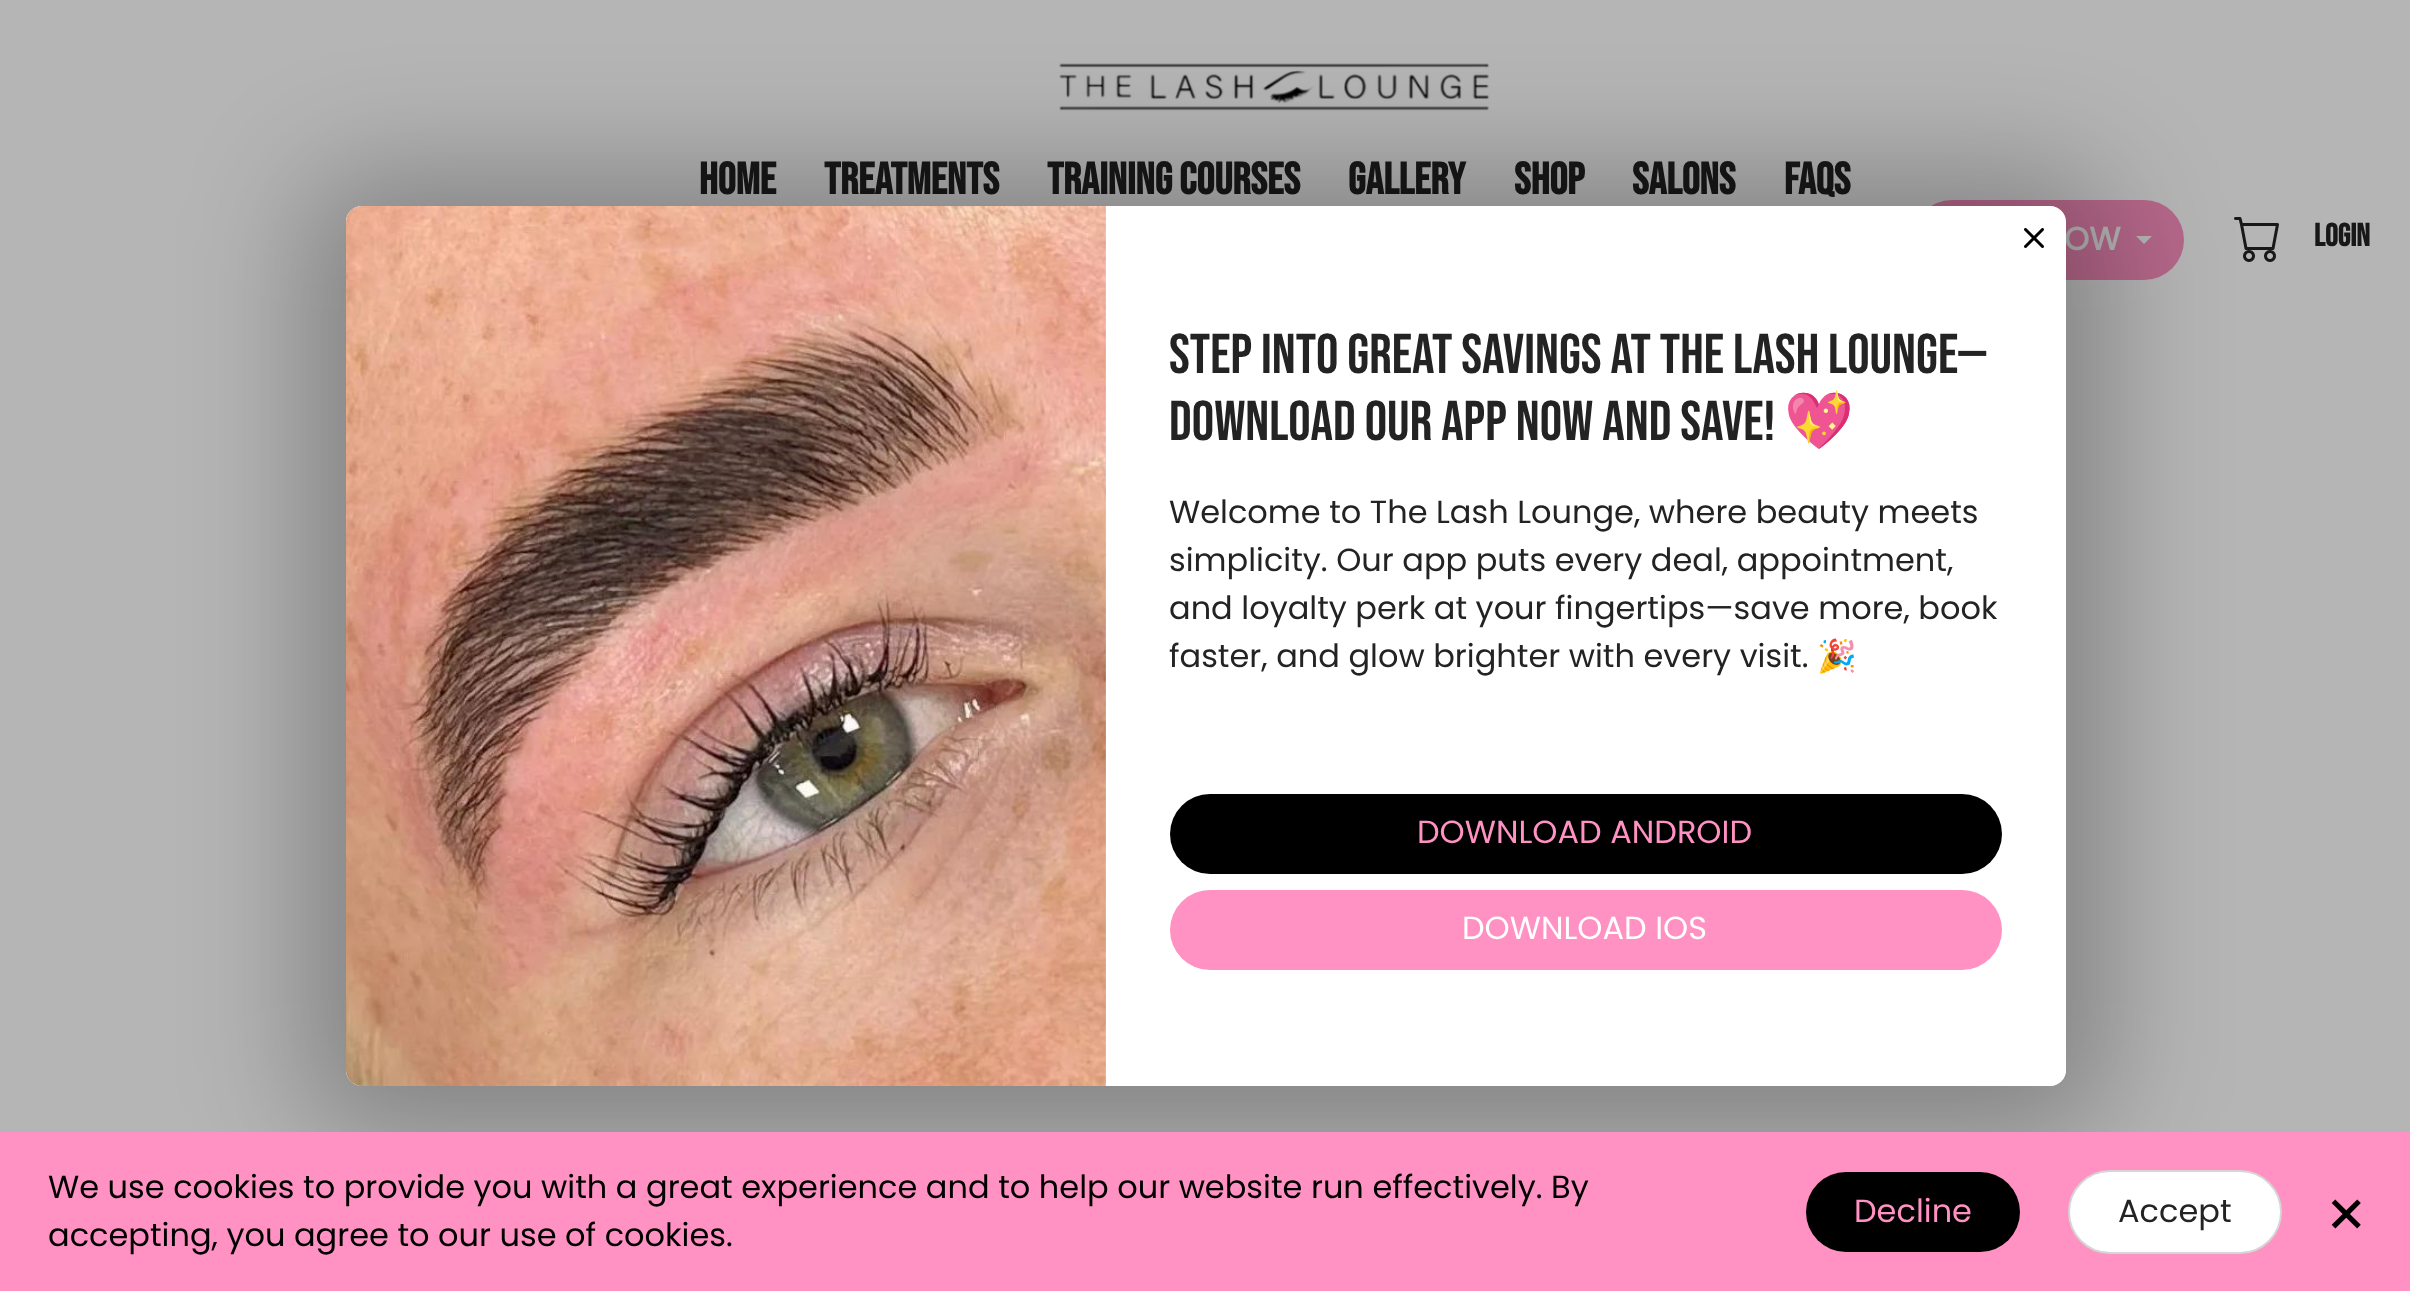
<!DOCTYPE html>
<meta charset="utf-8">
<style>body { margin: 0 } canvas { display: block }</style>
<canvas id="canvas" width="2410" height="1291"></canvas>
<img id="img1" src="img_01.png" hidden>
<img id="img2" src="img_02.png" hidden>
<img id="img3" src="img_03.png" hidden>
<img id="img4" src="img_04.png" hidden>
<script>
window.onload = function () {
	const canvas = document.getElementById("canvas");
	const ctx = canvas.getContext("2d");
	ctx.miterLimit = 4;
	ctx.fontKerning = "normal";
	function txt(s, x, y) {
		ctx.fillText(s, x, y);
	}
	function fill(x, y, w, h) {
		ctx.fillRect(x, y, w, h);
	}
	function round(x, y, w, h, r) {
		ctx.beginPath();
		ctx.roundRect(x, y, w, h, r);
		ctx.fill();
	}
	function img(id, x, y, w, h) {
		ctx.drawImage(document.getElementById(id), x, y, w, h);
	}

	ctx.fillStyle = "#FFFFFF";
	fill(0, 0, 2410, 1291);
	img("img1", 1059, 63, 430, 48);
	ctx.fillStyle = "#FF91C3";
	round(1912, 200, 272, 80, 40);
	ctx.fillStyle = "#FFFFFF";
	ctx.beginPath();
	ctx.moveTo(2136, 236);
	ctx.lineTo(2152, 236);
	ctx.lineTo(2144, 244);
	ctx.closePath();
	ctx.fill();
	img("img2", 2234, 217, 45, 45);
	ctx.font = "bold 44.75px Bebas Neue";
	ctx.fillStyle = "#242323";
	txt("Home", 699, 194);
	txt("Treatments", 824, 194);
	txt("Training Courses", 1047, 194);
	txt("Gallery", 1348, 194);
	txt("Shop", 1514, 194);
	txt("Salons", 1632, 194);
	txt("FAQs", 1784, 194);
	ctx.font = "bold 32px Poppins";
	ctx.fillStyle = "#FFFFFF";
	txt("OW", 2064, 250);
	ctx.font = "bold 32px Bebas Neue";
	ctx.fillStyle = "#242323";
	txt("Login", 2314, 246);
	ctx.beginPath();
	ctx.roundRect(-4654, -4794, 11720, 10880, 5016);
	ctx.strokeStyle = "rgba(0, 0, 0, 0.29)";
	ctx.lineWidth = 10000;
	ctx.stroke();
	ctx.fillStyle = "rgba(0, 0, 0, 0.28)";
	ctx.filter = "blur(60px)";
	ctx.beginPath();
	ctx.roundRect(306, 174, 1800, 960, 56);
	ctx.fill();
	ctx.filter = "none";
	ctx.fillStyle = "#FFFFFF";
	round(346, 206, 1720, 880, 16);
	img("img3", 346, 206, 760, 880);
	img("img4", 2024, 228, 20, 20);
	ctx.font = "56px Bebas Neue";
	ctx.fillStyle = "#242323";
	txt("Step into great savings at The Lash Lounge—", 1169, 373);
	txt("download our app now and save!", 1169, 440);
	ctx.font = "56px Noto Color Emoji";
	txt("💖", 1784, 440);
	ctx.font = "32px Poppins";
	txt("Welcome to The Lash Lounge, where beauty meets", 1169, 523);
	txt("simplicity. Our app puts every deal, appointment,", 1169, 571);
	txt("and loyalty perk at your fingertips—save more, book", 1169, 619);
	txt("faster, and glow brighter with every visit.", 1169, 667);
	ctx.font = "32px Noto Color Emoji";
	txt("🎉", 1817, 667);
	ctx.fillStyle = "#000000";
	round(1170, 794, 832, 80, 40);
	ctx.font = "32px Poppins";
	ctx.fillStyle = "#FF91C3";
	txt("DOWNLOAD ANDROID", 1417, 843);
	round(1170, 890, 832, 80, 40);
	ctx.fillStyle = "#FFFFFF";
	txt("DOWNLOAD IOS", 1462, 939);
	ctx.fillStyle = "#FF91C3";
	fill(0, 1132, 2410, 159);
	ctx.fillStyle = "#000000";
	txt("We use cookies to provide you with a great experience and to help our website run effectively. By", 48, 1198);
	txt("accepting, you agree to our use of cookies.", 48, 1246);
	round(1806, 1172, 214, 80, 40);
	ctx.fillStyle = "#FF91C3";
	txt("Decline", 1854, 1222);
	ctx.fillStyle = "#FFFFFF";
	ctx.beginPath();
	ctx.roundRect(2069, 1171, 212, 82, 41);
	ctx.fill();
	ctx.strokeStyle = "#D5D5D5";
	ctx.lineWidth = 2;
	ctx.stroke();
	ctx.fillStyle = "#242323";
	txt("Accept", 2118, 1222);
	ctx.font = "64px DejaVu Sans Mono";
	ctx.fillStyle = "#000000";
	txt("×", 2327, 1234);
};
</script>
